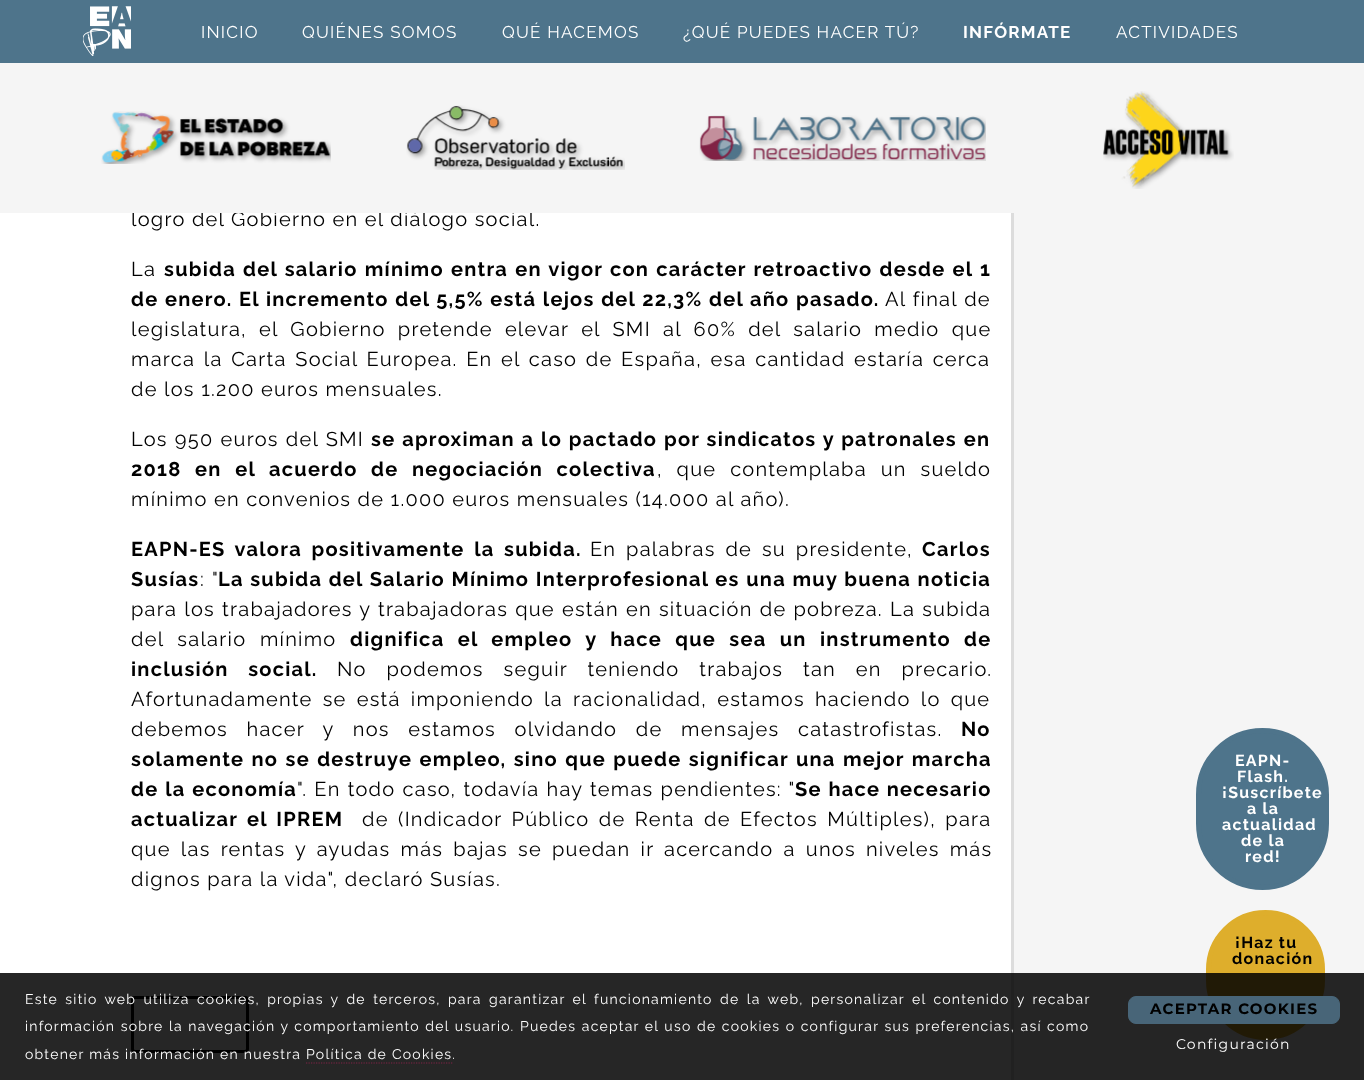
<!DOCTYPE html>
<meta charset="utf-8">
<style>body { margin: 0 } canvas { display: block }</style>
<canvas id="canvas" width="1364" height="1080"></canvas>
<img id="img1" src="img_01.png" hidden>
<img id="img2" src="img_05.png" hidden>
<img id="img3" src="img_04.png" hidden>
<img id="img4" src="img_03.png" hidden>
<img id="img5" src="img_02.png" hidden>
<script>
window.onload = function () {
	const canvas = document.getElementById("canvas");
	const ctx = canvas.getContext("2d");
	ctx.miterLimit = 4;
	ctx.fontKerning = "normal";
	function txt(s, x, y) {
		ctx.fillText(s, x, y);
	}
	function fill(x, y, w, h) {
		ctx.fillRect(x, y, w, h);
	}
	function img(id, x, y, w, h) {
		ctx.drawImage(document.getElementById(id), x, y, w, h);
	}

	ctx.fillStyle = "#FFFFFF";
	fill(0, 0, 1364, 1080);
	ctx.fillStyle = "#4E748B";
	fill(0, 0, 1364, 63);
	img("img1", 83, 6, 48, 50);
	ctx.beginPath();
	ctx.roundRect(132.5, 997.5, 115, 54, 2.5);
	ctx.strokeStyle = "#000000";
	ctx.lineWidth = 3;
	ctx.stroke();
	ctx.fillStyle = "#F5F5F5";
	fill(1014, 213, 350, 867);
	ctx.fillStyle = "#DCDCDC";
	fill(1011, 213, 3, 867);
	ctx.fillStyle = "#4E748B";
	ctx.beginPath();
	ctx.roundRect(1198.5, 730.5, 128, 157, 64);
	ctx.fill();
	ctx.strokeStyle = "#4E748B";
	ctx.lineWidth = 5;
	ctx.stroke();
	ctx.fillStyle = "#DEAE2C";
	ctx.beginPath();
	ctx.roundRect(1208.5, 912.5, 114, 125, 57);
	ctx.fill();
	ctx.strokeStyle = "#DEAE2C";
	ctx.stroke();
	ctx.fillStyle = "rgba(0, 0, 0, 0.85)";
	fill(0, 973, 1364, 107);
	ctx.beginPath();
	ctx.moveTo(306, 1063);
	ctx.lineTo(452.5, 1063);
	ctx.strokeStyle = "#7F2346";
	ctx.lineWidth = 1.2;
	ctx.setLineDash([1.25, 1.25]);
	ctx.stroke();
	ctx.fillStyle = "#486578";
	ctx.beginPath();
	ctx.roundRect(1128.5, 996.5, 211, 27, 7.5);
	ctx.fill();
	ctx.strokeStyle = "#486578";
	ctx.lineWidth = 1;
	ctx.setLineDash([]);
	ctx.stroke();
	ctx.letterSpacing = "1.25px";
	ctx.font = "17px Raleway";
	ctx.fillStyle = "#FFFFFF";
	txt("INICIO", 201, 38);
	txt("QUIÉNES SOMOS", 302, 38);
	txt("QUÉ HACEMOS", 502, 38);
	txt("¿QUÉ PUEDES HACER TÚ?", 683, 38);
	ctx.font = "bold 17px Raleway";
	txt("INFÓRMATE", 963, 38);
	ctx.font = "17px Raleway";
	txt("ACTIVIDADES", 1116, 38);
	ctx.font = "20px Raleway";
	ctx.fillStyle = "#000000";
	txt("logro del Gobierno en el diálogo social.", 131, 226);
	ctx.fillStyle = "#F5F5F5";
	fill(0, 63, 1364, 150);
	img("img2", 1103, 91, 131, 98);
	img("img3", 699, 115, 287, 46);
	img("img4", 406, 105, 219, 65);
	img("img5", 101, 111, 230, 53);
	ctx.fillStyle = "#000000";
	txt("La", 131, 276);
	ctx.wordSpacing = "1.1px";
	ctx.font = "bold 20px Raleway";
	txt("subida del salario mínimo entra en vigor con carácter retroactivo desde el 1", 164, 276);
	ctx.wordSpacing = "0.5px";
	txt("de enero. El incremento del 5,5% está lejos del 22,3% del año pasado.", 131, 306);
	ctx.font = "20px Raleway";
	txt("Al final de", 885, 306);
	ctx.wordSpacing = "5.9px";
	txt("legislatura, el Gobierno pretende elevar el SMI al 60% del salario medio que", 131, 336);
	ctx.wordSpacing = "2.25px";
	txt("marca la Carta Social Europea. En el caso de España, esa cantidad estaría cerca", 131, 366);
	ctx.wordSpacing = "0px";
	txt("de los 1.200 euros mensuales.", 131, 396);
	ctx.wordSpacing = "0.75px";
	txt("Los 950 euros del SMI", 131, 446);
	ctx.font = "bold 20px Raleway";
	txt("se aproximan a lo pactado por sindicatos y patronales en", 371, 446);
	ctx.wordSpacing = "7.5px";
	txt("2018 en el acuerdo de negociación colectiva", 131, 476);
	ctx.font = "20px Raleway";
	txt(", que contemplaba un sueldo", 657, 476);
	ctx.wordSpacing = "0px";
	txt("mínimo en convenios de 1.000 euros mensuales (14.000 al año).", 131, 506);
	ctx.wordSpacing = "3.5px";
	ctx.font = "bold 20px Raleway";
	txt("EAPN-ES valora positivamente la subida.", 131, 556);
	ctx.font = "20px Raleway";
	txt("En palabras de su presidente,", 590, 556);
	ctx.wordSpacing = "0px";
	ctx.font = "bold 20px Raleway";
	txt("Carlos", 922, 556);
	txt("Susías", 131, 586);
	ctx.wordSpacing = "1px";
	ctx.font = "20px Raleway";
	txt(": \"", 200, 586);
	ctx.wordSpacing = "0.5px";
	ctx.font = "bold 20px Raleway";
	txt("La subida del Salario Mínimo Interprofesional es una muy buena noticia", 218, 586);
	ctx.wordSpacing = "0.75px";
	ctx.font = "20px Raleway";
	txt("para los trabajadores y trabajadoras que están en situación de pobreza. La subida", 131, 616);
	ctx.wordSpacing = "7.25px";
	txt("del salario mínimo", 131, 646);
	ctx.font = "bold 20px Raleway";
	txt("dignifica el empleo y hace que sea un instrumento de", 350, 646);
	ctx.wordSpacing = "13.5px";
	txt("inclusión social.", 131, 676);
	ctx.font = "20px Raleway";
	txt("No podemos seguir teniendo trabajos tan en precario.", 337, 676);
	ctx.wordSpacing = "3.75px";
	txt("Afortunadamente se está imponiendo la racionalidad, estamos haciendo lo que", 131, 706);
	ctx.wordSpacing = "12.25px";
	txt("debemos hacer y nos estamos olvidando de mensajes catastrofistas.", 131, 736);
	ctx.wordSpacing = "0px";
	ctx.font = "bold 20px Raleway";
	txt("No", 961, 736);
	ctx.wordSpacing = "1.25px";
	txt("solamente no se destruye empleo, sino que puede significar una mejor marcha", 131, 766);
	ctx.wordSpacing = "0.75px";
	txt("de la economía", 131, 796);
	ctx.font = "20px Raleway";
	txt("\". En todo caso, todavía hay temas pendientes: \"", 297, 796);
	ctx.wordSpacing = "0.6px";
	ctx.font = "bold 20px Raleway";
	txt("Se hace necesario", 795, 796);
	ctx.wordSpacing = "3px";
	txt("actualizar el IPREM", 131, 826);
	ctx.font = "20px Raleway";
	txt("de (Indicador Público de Renta de Efectos Múltiples), para", 362, 826);
	ctx.wordSpacing = "3.75px";
	txt("que las rentas y ayudas más bajas se puedan ir acercando a unos niveles más", 131, 856);
	ctx.wordSpacing = "0px";
	txt("dignos para la vida\", declaró Susías.", 131, 886);
	ctx.font = "bold 16px Raleway";
	ctx.fillStyle = "#FFFFFF";
	txt("EAPN-", 1235, 766);
	txt("Flash.", 1237, 782);
	txt("¡Suscríbete", 1222, 798);
	txt("a la", 1247, 814);
	txt("actualidad", 1222, 830);
	txt("de la", 1241, 846);
	txt("red!", 1245, 862);
	ctx.fillStyle = "#000000";
	txt("¡Haz tu", 1235, 948);
	txt("donación", 1232, 964);
	ctx.wordSpacing = "2.5px";
	ctx.font = "14px Raleway";
	ctx.fillStyle = "#FFFFFF";
	txt("Este sitio web utiliza cookies, propias y de terceros, para garantizar el funcionamiento de la web, personalizar el contenido y recabar", 25, 1004);
	ctx.wordSpacing = "0.6px";
	txt("información sobre la navegación y comportamiento del usuario. Puedes aceptar el uso de cookies o configurar sus preferencias, así como", 25, 1031);
	ctx.wordSpacing = "0px";
	txt("obtener más información en nuestra Política de Cookies.", 25, 1059);
	ctx.font = "bold 15px Montserrat";
	ctx.fillStyle = "#000000";
	txt("ACEPTAR COOKIES", 1150, 1014);
	ctx.font = "14px Montserrat";
	ctx.fillStyle = "#FFFFFF";
	txt("Configuración", 1176, 1049);
};
</script>
